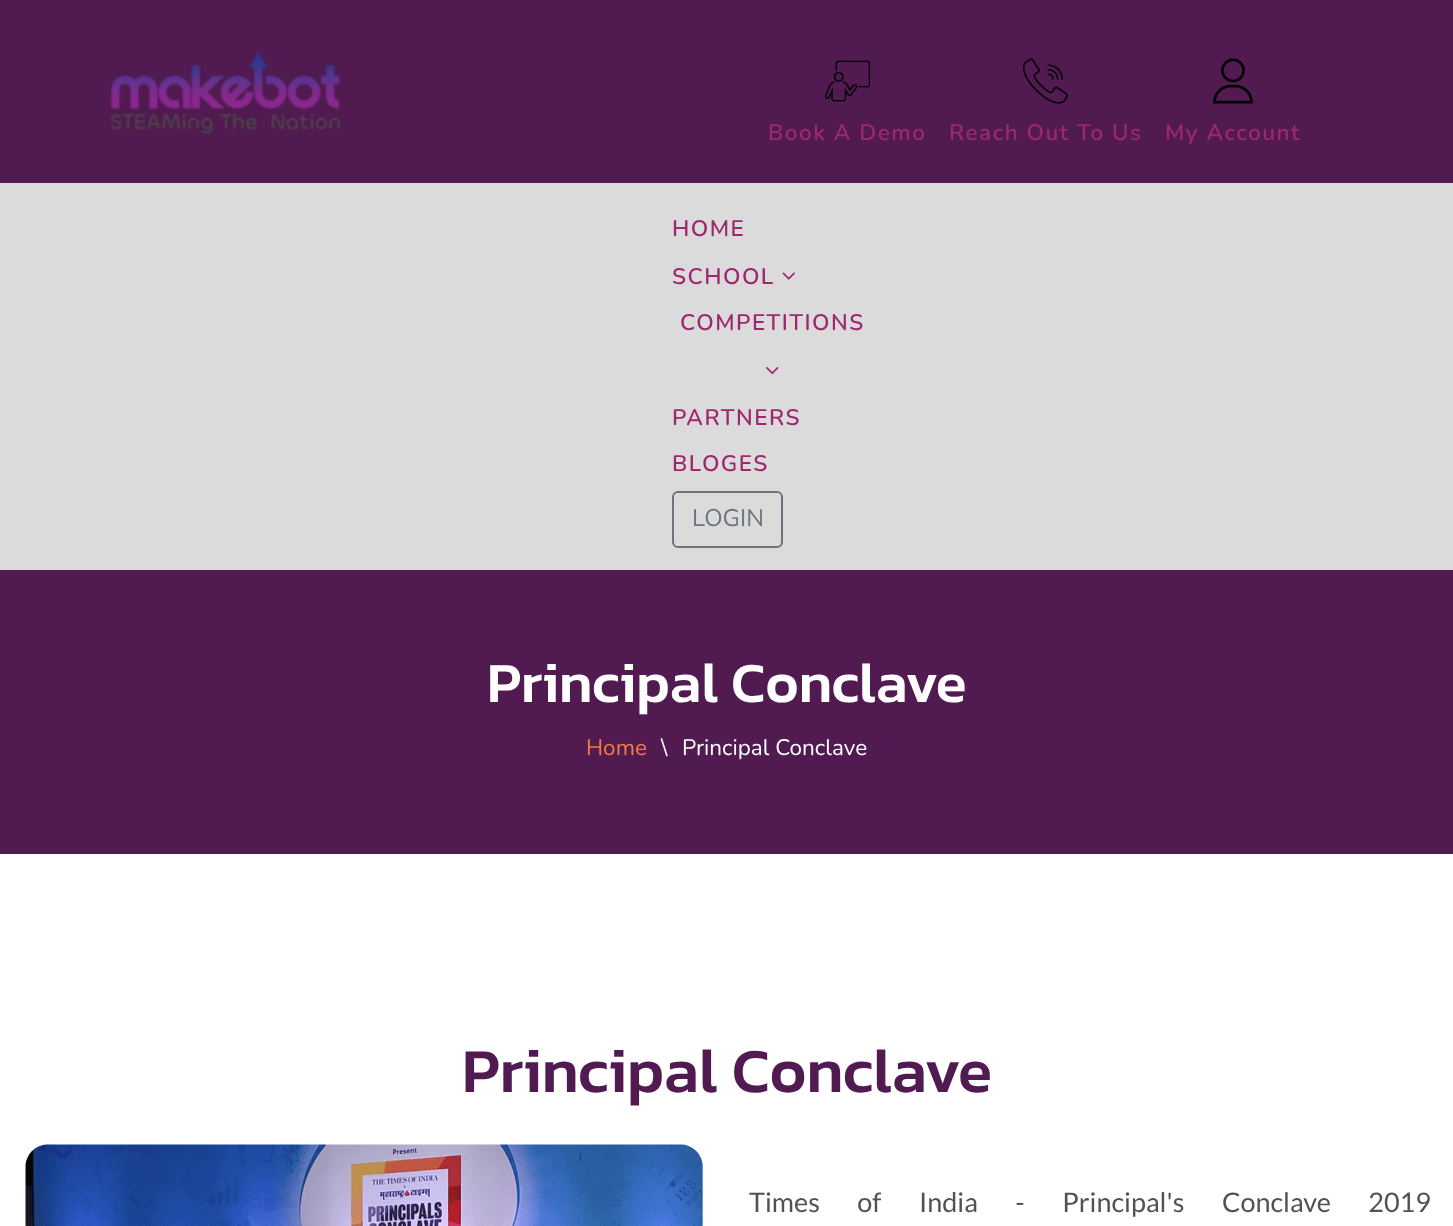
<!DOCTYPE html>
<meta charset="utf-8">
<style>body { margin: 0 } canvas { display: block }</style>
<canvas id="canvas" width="1453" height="1226"></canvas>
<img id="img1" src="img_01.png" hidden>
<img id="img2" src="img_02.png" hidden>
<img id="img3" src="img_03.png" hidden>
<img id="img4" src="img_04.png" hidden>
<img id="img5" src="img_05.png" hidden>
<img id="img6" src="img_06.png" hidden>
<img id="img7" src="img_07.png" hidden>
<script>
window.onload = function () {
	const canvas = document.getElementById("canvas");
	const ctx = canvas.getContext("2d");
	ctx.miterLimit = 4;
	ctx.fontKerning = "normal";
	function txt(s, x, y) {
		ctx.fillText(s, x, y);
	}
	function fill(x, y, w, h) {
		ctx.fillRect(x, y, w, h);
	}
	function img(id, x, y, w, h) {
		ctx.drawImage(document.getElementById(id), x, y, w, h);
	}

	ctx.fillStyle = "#FFFFFF";
	fill(0, 0, 1453, 1226);
	ctx.fillStyle = "#511B51";
	fill(0, 0, 1453, 183);
	img("img1", 110, 52, 231, 82);
	img("img2", 825, 60, 45, 42);
	img("img3", 1023, 58, 45, 46);
	img("img4", 1213, 58, 40, 46);
	ctx.fillStyle = "#DBDBDB";
	fill(0, 183, 1453, 387);
	img("img5", 782, 272, 13, 8);
	img("img6", 766, 367, 13, 8);
	ctx.beginPath();
	ctx.roundRect(673, 492, 109, 55, 5);
	ctx.strokeStyle = "#6C757D";
	ctx.lineWidth = 2;
	ctx.stroke();
	ctx.fillStyle = "#511B51";
	fill(0, 570, 1453, 284);
	img("img7", 25, 1144, 678, 82);
	ctx.letterSpacing = "1.5px";
	ctx.font = "600 22.5px Nunito";
	ctx.fillStyle = "#9F2770";
	txt("Book A Demo", 768, 140);
	txt("Reach Out To Us", 949, 140);
	txt("My Account", 1165, 140);
	txt("HOME", 672, 236);
	txt("SCHOOL", 672, 284);
	txt("COMPETITIONS", 680, 330);
	txt("PARTNERS", 672, 425);
	txt("BLOGES", 672, 471);
	ctx.letterSpacing = "0px";
	ctx.font = "24px Nunito";
	ctx.fillStyle = "#6C757D";
	txt("LOGIN", 692, 526);
	ctx.font = "500 57px Kanit";
	ctx.fillStyle = "#FFFFFF";
	txt("Principal Conclave", 487, 702);
	ctx.font = "22.5px Nunito";
	ctx.fillStyle = "#F47A43";
	txt("Home", 586, 755);
	ctx.fillStyle = "#FFFFFF";
	txt("\\", 661, 755);
	txt("Principal Conclave", 682, 755);
	ctx.font = "500 63px Kanit";
	ctx.fillStyle = "#511B51";
	txt("Principal Conclave", 462, 1092);
	ctx.wordSpacing = "32.25px";
	ctx.font = "27px Lato";
	ctx.fillStyle = "#525252";
	txt("Times of India - Principal's Conclave 2019", 749, 1212);
};
</script>
